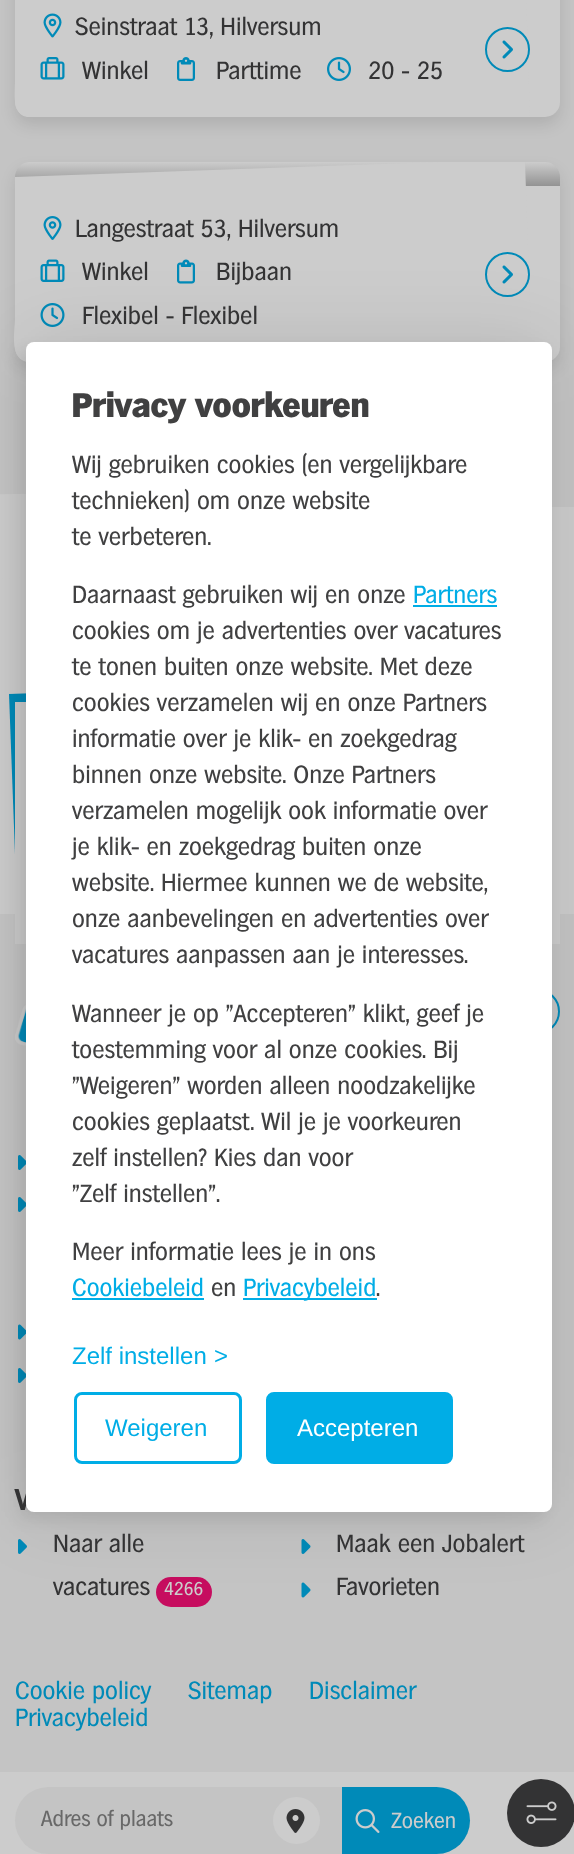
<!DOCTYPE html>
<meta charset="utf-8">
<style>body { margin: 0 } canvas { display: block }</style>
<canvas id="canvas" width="574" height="1854"></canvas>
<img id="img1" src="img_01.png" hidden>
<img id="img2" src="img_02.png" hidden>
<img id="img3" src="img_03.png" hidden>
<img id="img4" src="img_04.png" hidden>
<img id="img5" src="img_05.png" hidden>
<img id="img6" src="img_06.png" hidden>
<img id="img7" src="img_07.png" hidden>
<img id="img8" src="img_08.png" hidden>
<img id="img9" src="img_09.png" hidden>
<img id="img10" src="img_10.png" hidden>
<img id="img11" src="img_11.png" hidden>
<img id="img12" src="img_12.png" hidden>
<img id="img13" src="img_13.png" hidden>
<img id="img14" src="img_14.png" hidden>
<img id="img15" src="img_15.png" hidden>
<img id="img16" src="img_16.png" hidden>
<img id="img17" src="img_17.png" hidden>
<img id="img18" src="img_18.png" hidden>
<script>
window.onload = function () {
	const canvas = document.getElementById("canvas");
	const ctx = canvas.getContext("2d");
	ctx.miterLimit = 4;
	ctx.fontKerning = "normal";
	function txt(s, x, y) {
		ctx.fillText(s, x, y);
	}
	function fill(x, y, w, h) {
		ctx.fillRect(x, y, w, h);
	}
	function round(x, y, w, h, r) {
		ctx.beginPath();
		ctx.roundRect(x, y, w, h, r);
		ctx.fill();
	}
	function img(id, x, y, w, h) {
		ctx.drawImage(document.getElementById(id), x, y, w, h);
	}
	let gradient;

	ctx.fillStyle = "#CCCCCC";
	fill(0, 0, 574, 1854);
	ctx.fillStyle = "#C4C4C4";
	fill(0, 0, 574, 507);
	ctx.fillStyle = "rgba(0, 0, 0, 0.1)";
	ctx.filter = "blur(7.5px)";
	ctx.beginPath();
	ctx.roundRect(15, -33, 545, 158, 15);
	ctx.fill();
	ctx.filter = "none";
	ctx.fillStyle = "#CCCCCC";
	round(15, -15, 545, 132, 15);
	ctx.beginPath();
	ctx.moveTo(525, -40);
	ctx.lineTo(530, 117);
	ctx.lineTo(30, 117);
	ctx.bezierCurveTo(11, 117, 15, 93, 15, 81);
	ctx.lineTo(15, -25);
	ctx.lineTo(438, -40);
	ctx.closePath();
	ctx.fill();
	img("img1", 43, 13, 19, 25);
	img("img2", 40, 57, 25, 23);
	img("img3", 177, 57, 18, 24);
	img("img4", 327, 57, 24, 24);
	ctx.beginPath();
	ctx.arc(507.5, 49.5, 21.5, 0, Math.PI * 2);
	ctx.strokeStyle = "#008AB8";
	ctx.lineWidth = 2;
	ctx.stroke();
	img("img5", 502, 40, 11, 19);
	ctx.fillStyle = "rgba(0, 0, 0, 0.1)";
	ctx.filter = "blur(7.5px)";
	ctx.beginPath();
	ctx.roundRect(15, 170, 545, 199, 15);
	ctx.fill();
	ctx.filter = "none";
	ctx.fillStyle = "#CCCCCC";
	round(15, 162, 545, 200, 15);
	gradient = ctx.createLinearGradient(287, 222, 287, 162);
	gradient.addColorStop(0, "rgba(0, 0, 0, 0.7)");
	gradient.addColorStop(1, "rgba(0, 0, 0, 0)");
	ctx.fillStyle = gradient;
	ctx.beginPath();
	ctx.roundRect(15, 162, 545, 24, [15, 15, 0, 0]);
	ctx.fill();
	ctx.fillStyle = "#CCCCCC";
	ctx.beginPath();
	ctx.moveTo(525, 162);
	ctx.lineTo(532, 362);
	ctx.lineTo(30, 362);
	ctx.bezierCurveTo(8, 362, 15, 330, 15, 319);
	ctx.lineTo(15, 177);
	ctx.lineTo(438, 162);
	ctx.closePath();
	ctx.fill();
	img("img6", 43, 216, 19, 24);
	img("img7", 40, 259, 25, 23);
	img("img8", 177, 259, 18, 25);
	img("img9", 40, 303, 25, 24);
	ctx.beginPath();
	ctx.arc(507.5, 274.5, 21.5, 0, Math.PI * 2);
	ctx.stroke();
	img("img5", 502, 265, 11, 19);
	ctx.beginPath();
	ctx.moveTo(-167, 497);
	ctx.lineTo(551, 485);
	ctx.lineTo(553, 569);
	ctx.lineTo(-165, 581);
	ctx.closePath();
	ctx.fill();
	ctx.fillStyle = "#C4C4C4";
	round(15, 1787, 455, 67, 33.5);
	ctx.fillStyle = "#CCCCCC";
	ctx.beginPath();
	ctx.arc(296.5, 1820.5, 23.5, 0, Math.PI * 2);
	ctx.fill();
	img("img10", 286, 1809, 19, 24);
	ctx.fillStyle = "#008AB8";
	ctx.beginPath();
	ctx.roundRect(342, 1787, 128, 67, [0, 33.5, 33.5, 0]);
	ctx.fill();
	img("img11", 355, 1809, 25, 24);
	ctx.fillStyle = "#333334";
	ctx.beginPath();
	ctx.arc(541, 1813, 34, 0, Math.PI * 2);
	ctx.fill();
	img("img12", 526, 1801, 31, 23);
	ctx.fillStyle = "#008AB8";
	ctx.beginPath();
	ctx.moveTo(9, 694);
	ctx.lineTo(546, 675);
	ctx.lineTo(555, 915);
	ctx.lineTo(18, 934);
	ctx.closePath();
	ctx.fill();
	ctx.fillStyle = "#C4C4C4";
	fill(0, 914, 574, 742);
	ctx.fillStyle = "#CCCCCC";
	fill(15, 702, 545, 242);
	img("img13", 15, 1004, 11, 43);
	ctx.beginPath();
	ctx.arc(537.5, 1011.5, 21.5, 0, Math.PI * 2);
	ctx.stroke();
	img("img14", 18, 1155, 8, 15);
	img("img14", 18, 1197, 8, 15);
	img("img15", 18, 1324, 8, 16);
	img("img14", 18, 1368, 8, 15);
	img("img16", 18, 1539, 9, 15);
	ctx.fillStyle = "#C60D5F";
	round(156, 1577, 56, 30, 15);
	img("img17", 301, 1539, 10, 15);
	img("img18", 301, 1582, 10, 16);
	ctx.fillStyle = "rgba(0, 0, 0, 0.1)";
	ctx.filter = "blur(37.5px)";
	ctx.beginPath();
	ctx.roundRect(26, 342, 526, 1170, 8);
	ctx.fill();
	ctx.filter = "none";
	ctx.fillStyle = "rgba(0, 0, 0, 0.07)";
	ctx.filter = "blur(7.5px)";
	ctx.beginPath();
	ctx.roundRect(18, 350, 527, 1170, 8);
	ctx.fill();
	ctx.filter = "none";
	ctx.fillStyle = "#C4C4C4";
	fill(0, 1656, 574, 116);
	ctx.font = "24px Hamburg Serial";
	ctx.fillStyle = "#333334";
	txt("Seinstraat 13, Hilversum", 75, 35);
	txt("Winkel", 82, 79);
	txt("Parttime", 216, 79);
	txt("20 - 25", 368, 79);
	txt("Langestraat 53, Hilversum", 75, 237);
	txt("Winkel", 82, 280);
	txt("Bijbaan", 216, 280);
	txt("Flexibel - Flexibel", 82, 324);
	ctx.font = "21px Hamburg Serial";
	ctx.fillStyle = "#686868";
	txt("Adres of plaats", 41, 1826);
	ctx.fillStyle = "#CCCCCC";
	txt("Zoeken", 391, 1828);
	ctx.font = "bold 29px Hamburg Serial";
	ctx.fillStyle = "#333334";
	txt("V", 15, 1510);
	ctx.fillStyle = "#FFFFFF";
	round(26, 342, 526, 1170, 8);
	ctx.fillStyle = "#00ADE6";
	ctx.beginPath();
	ctx.roundRect(267.5, 1393.5, 184, 69, 6.5);
	ctx.fill();
	ctx.strokeStyle = "#00ADE6";
	ctx.lineWidth = 3;
	ctx.stroke();
	ctx.font = "24px Liberation Sans";
	ctx.fillStyle = "#FFFFFF";
	txt("Accepteren", 297, 1436);
	ctx.beginPath();
	ctx.roundRect(75.5, 1393.5, 165, 69, 6.5);
	ctx.stroke();
	ctx.fillStyle = "#00ADE6";
	txt("Weigeren", 105, 1436);
	txt(">", 214, 1364);
	txt("Zelf instellen", 72, 1364);
	ctx.font = "24px Hamburg Serial";
	ctx.fillStyle = "#404041";
	txt(".", 376, 1296);
	ctx.fillStyle = "#00ADE6";
	fill(243, 1298, 134, 2);
	txt("Privacybeleid", 243, 1296);
	ctx.fillStyle = "#404041";
	txt("en", 211, 1296);
	ctx.fillStyle = "#00ADE6";
	txt("Cookiebeleid", 72, 1296);
	fill(72, 1298, 132, 2);
	ctx.fillStyle = "#404041";
	txt("Meer informatie lees je in ons", 72, 1260);
	txt("\"Zelf instellen\".", 72, 1202);
	txt("zelf instellen? Kies dan voor", 72, 1166);
	txt("cookies geplaatst. Wil je je voorkeuren", 72, 1130);
	txt("\"Weigeren\" worden alleen noodzakelijke", 72, 1094);
	txt("toestemming voor al onze cookies. Bij", 72, 1058);
	txt("Wanneer je op \"Accepteren\" klikt, geef je", 72, 1022);
	txt("vacatures aanpassen aan je interesses.", 72, 963);
	txt("onze aanbevelingen en advertenties over", 72, 927);
	txt("website. Hiermee kunnen we de website,", 72, 891);
	txt("je klik- en zoekgedrag buiten onze", 72, 855);
	txt("verzamelen mogelijk ook informatie over", 72, 819);
	txt("binnen onze website. Onze Partners", 72, 783);
	txt("informatie over je klik- en zoekgedrag", 72, 747);
	txt("cookies verzamelen wij en onze Partners", 72, 711);
	txt("te tonen buiten onze website. Met deze", 72, 675);
	txt("cookies om je advertenties over vacatures", 72, 639);
	ctx.fillStyle = "#00ADE6";
	txt("Partners", 413, 603);
	fill(413, 605, 84, 2);
	ctx.fillStyle = "#404041";
	txt("Daarnaast gebruiken wij en onze", 72, 603);
	txt("te verbeteren.", 72, 545);
	txt("technieken) om onze website", 72, 509);
	txt("Wij gebruiken cookies (en vergelijkbare", 72, 473);
	ctx.font = "900 33px Hamburg Serial";
	txt("Privacy voorkeuren", 72, 417);
	ctx.font = "24px Hamburg Serial";
	ctx.fillStyle = "#333334";
	txt("Naar alle", 53, 1552);
	txt("vacatures", 53, 1595);
	ctx.font = "18px Hamburg Serial";
	ctx.fillStyle = "#CCCCCC";
	txt("4266", 164, 1595);
	ctx.font = "24px Hamburg Serial";
	ctx.fillStyle = "#333334";
	txt("Maak een Jobalert", 336, 1552);
	txt("Favorieten", 336, 1595);
	ctx.fillStyle = "#008AB8";
	txt("Cookie policy", 15, 1699);
	txt("Sitemap", 188, 1699);
	txt("Disclaimer", 309, 1699);
	txt("Privacybeleid", 15, 1726);
};
</script>
